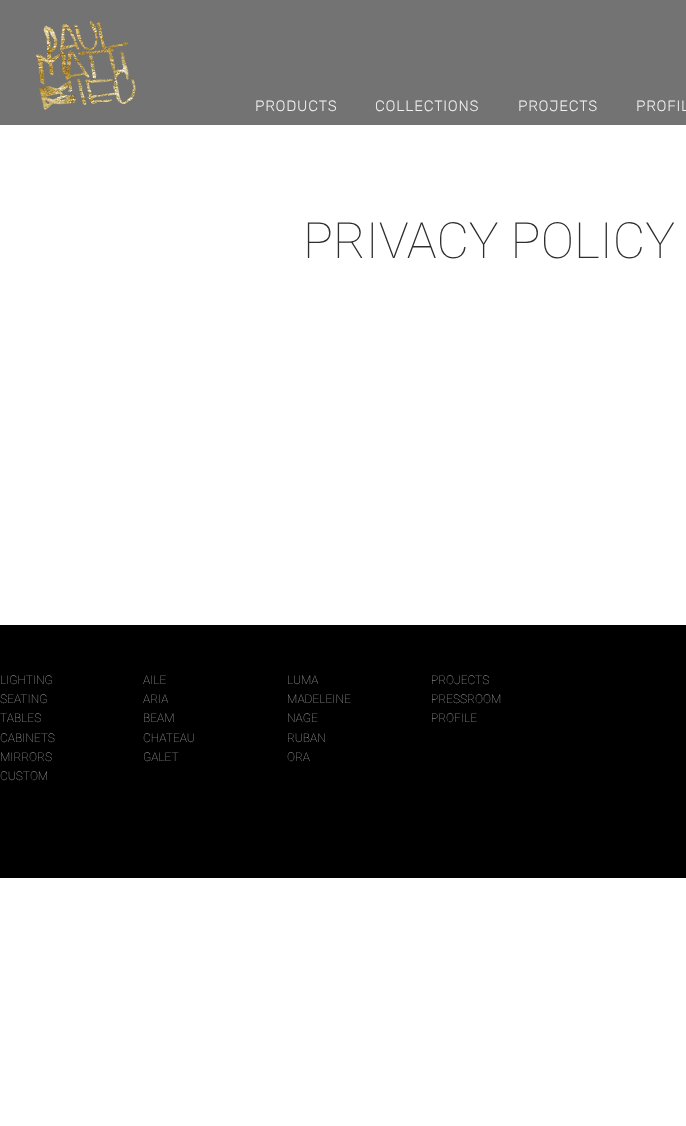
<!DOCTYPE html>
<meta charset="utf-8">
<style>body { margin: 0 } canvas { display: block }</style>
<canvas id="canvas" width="686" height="1126"></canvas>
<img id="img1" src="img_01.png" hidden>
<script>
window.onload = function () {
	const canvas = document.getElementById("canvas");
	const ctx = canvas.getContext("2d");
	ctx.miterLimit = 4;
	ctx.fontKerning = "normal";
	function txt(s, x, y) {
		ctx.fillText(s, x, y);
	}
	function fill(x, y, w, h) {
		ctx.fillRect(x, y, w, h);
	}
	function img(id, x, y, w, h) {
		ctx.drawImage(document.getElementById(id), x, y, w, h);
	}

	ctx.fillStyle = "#FFFFFF";
	fill(0, 0, 686, 1126);
	ctx.fillStyle = "#737373";
	fill(0, 0, 686, 125);
	img("img1", 36, 21, 100, 89);
	ctx.fillStyle = "#000000";
	fill(0, 625, 686, 253);
	ctx.letterSpacing = "0.75px";
	ctx.font = "300 15px Rubik";
	ctx.fillStyle = "#F2F2F2";
	txt("PRODUCTS", 255, 111);
	txt("COLLECTIONS", 375, 111);
	txt("PROJECTS", 518, 111);
	txt("PROFIL", 636, 111);
	ctx.letterSpacing = "0px";
	ctx.font = "100 50px Roboto";
	ctx.fillStyle = "#2E2E2E";
	txt("PRIVACY POLICY", 303, 258);
	ctx.font = "100 12px Roboto";
	ctx.fillStyle = "#B6B6B6";
	txt("LIGHTING", 0, 684);
	txt("SEATING", 0, 703);
	txt("TABLES", 0, 722);
	txt("CABINETS", 0, 742);
	txt("MIRRORS", 0, 761);
	txt("CUSTOM", 0, 780);
	txt("AILE", 143, 684);
	txt("ARIA", 143, 703);
	txt("BEAM", 143, 722);
	txt("CHATEAU", 143, 742);
	txt("GALET", 143, 761);
	txt("LUMA", 287, 684);
	txt("MADELEINE", 287, 703);
	txt("NAGE", 287, 722);
	txt("RUBAN", 287, 742);
	txt("ORA", 287, 761);
	txt("PROJECTS", 431, 684);
	txt("PRESSROOM", 431, 703);
	txt("PROFILE", 431, 722);
};
</script>
